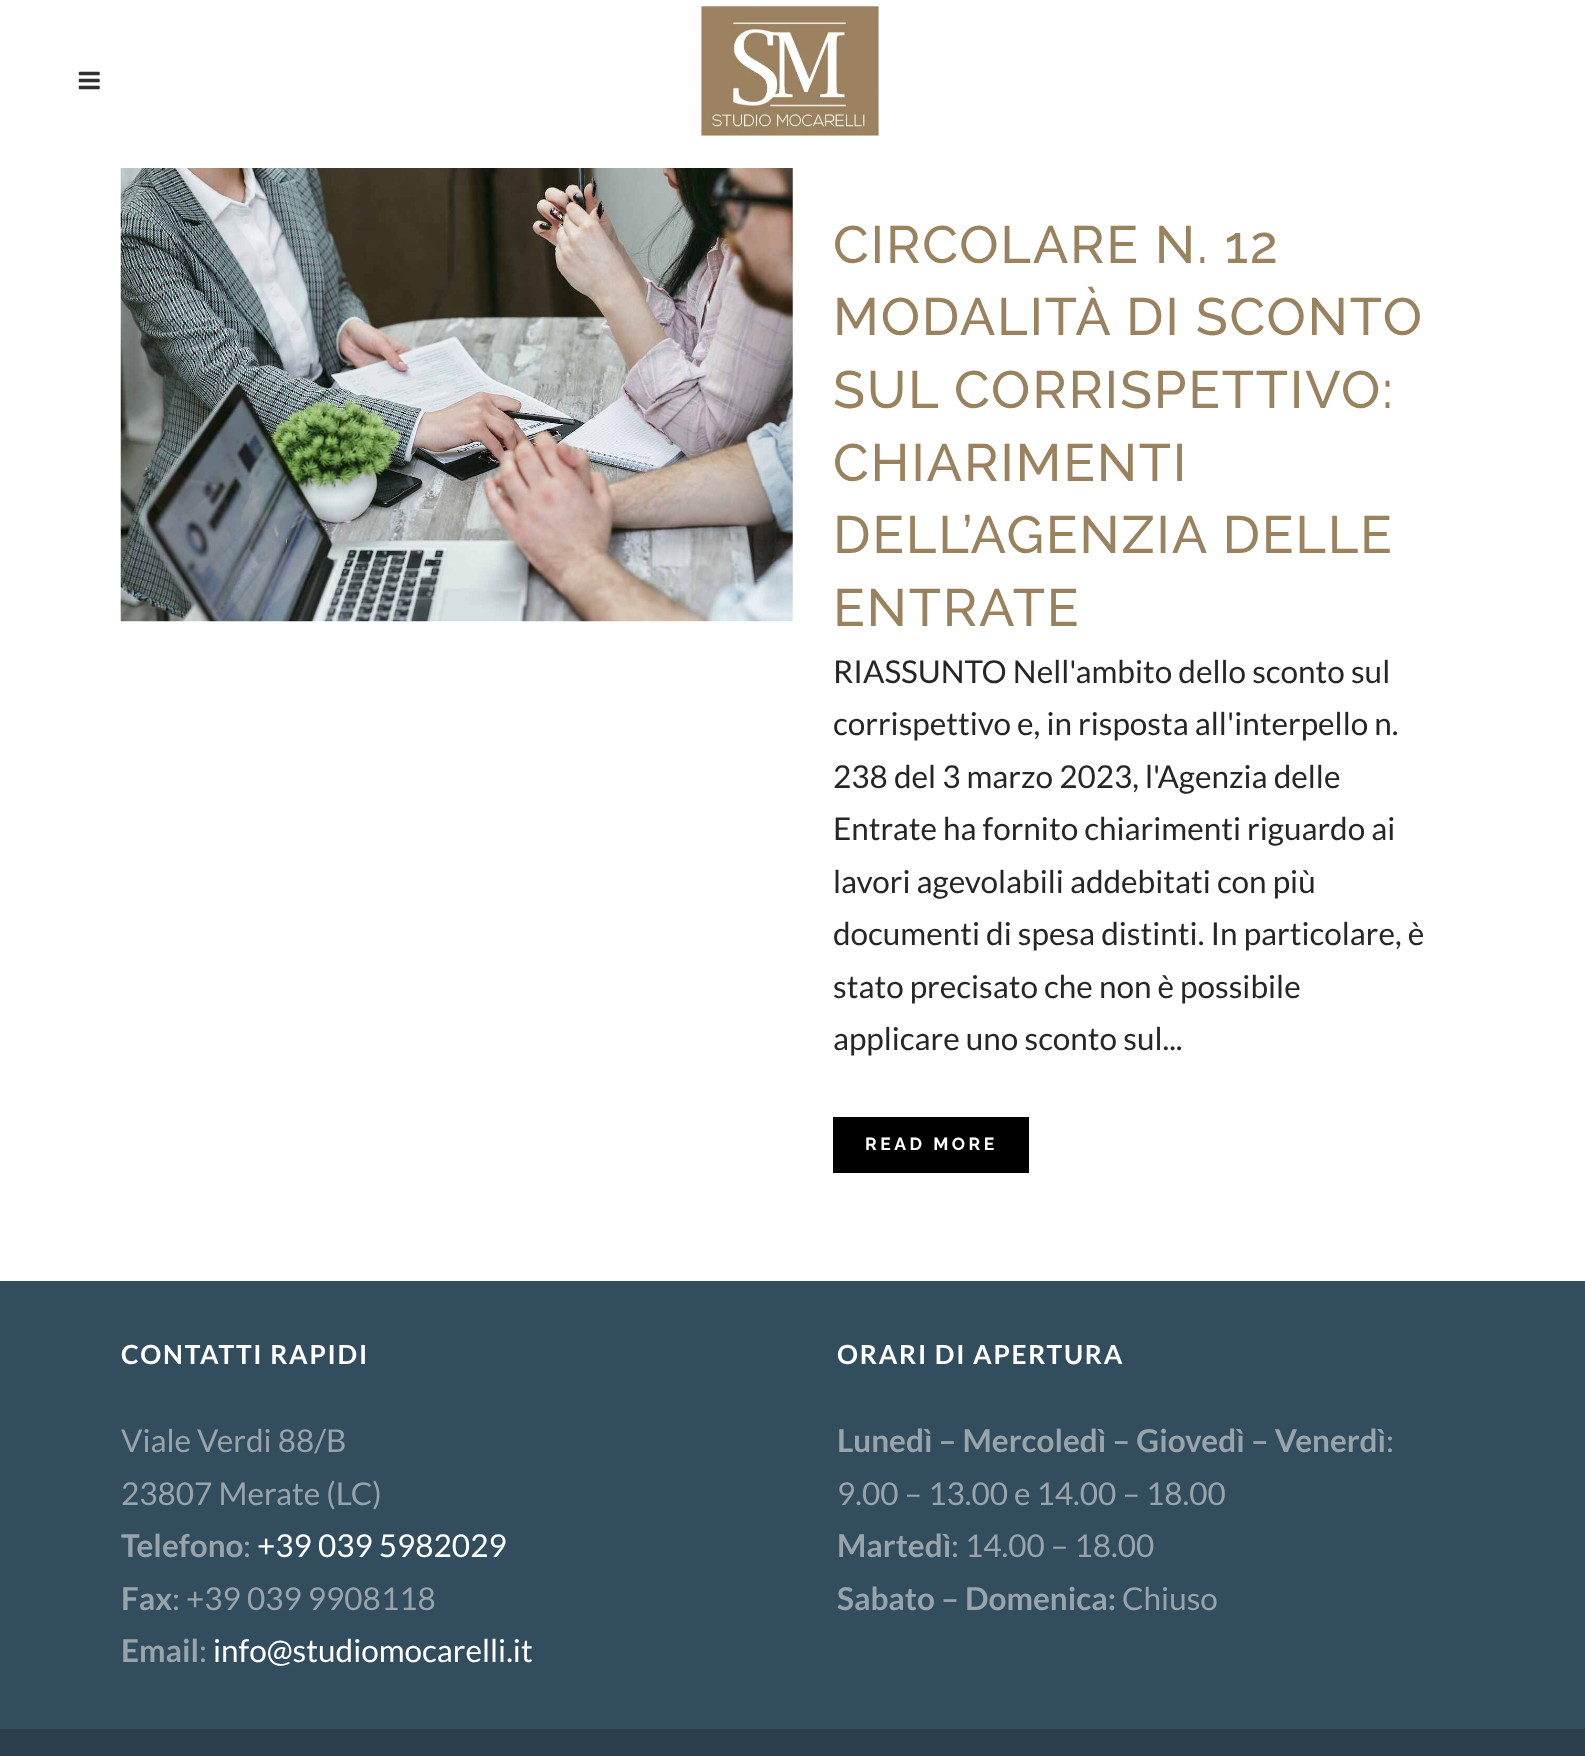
<!DOCTYPE html>
<meta charset="utf-8">
<style>body { margin: 0 } canvas { display: block }</style>
<canvas id="canvas" width="1585" height="1756"></canvas>
<img id="img1" src="img_01.png" hidden>
<img id="img2" src="img_02.png" hidden>
<img id="img3" src="img_03.png" hidden>
<script>
window.onload = function () {
	const canvas = document.getElementById("canvas");
	const ctx = canvas.getContext("2d");
	ctx.miterLimit = 4;
	ctx.fontKerning = "normal";
	function txt(s, x, y) {
		ctx.fillText(s, x, y);
	}
	function fill(x, y, w, h) {
		ctx.fillRect(x, y, w, h);
	}
	function img(id, x, y, w, h) {
		ctx.drawImage(document.getElementById(id), x, y, w, h);
	}

	ctx.fillStyle = "#FFFFFF";
	fill(0, 0, 1585, 1756);
	img("img1", 78, 71, 22, 19);
	img("img2", 701, 6, 178, 130);
	img("img3", 120, 168, 673, 454);
	ctx.fillStyle = "#000000";
	fill(833, 1117, 196, 56);
	ctx.fillStyle = "#314D5E";
	fill(0, 1281, 1585, 448);
	ctx.fillStyle = "#2B3F4D";
	fill(0, 1729, 1585, 27);
	ctx.letterSpacing = "1.75px";
	ctx.font = "500 52.5px Raleway";
	ctx.fillStyle = "#9B825E";
	txt("CIRCOLARE N. 12", 833, 263);
	txt("MODALITÀ DI SCONTO", 833, 335);
	txt("SUL CORRISPETTIVO:", 833, 408);
	txt("CHIARIMENTI", 833, 481);
	txt("DELL’AGENZIA DELLE", 833, 553);
	txt("ENTRATE", 833, 626);
	ctx.letterSpacing = "0px";
	ctx.font = "31.5px Lato";
	ctx.fillStyle = "#282525";
	txt("RIASSUNTO Nell'ambito dello sconto sul", 833, 683);
	txt("corrispettivo e, in risposta all'interpello n.", 833, 735);
	txt("238 del 3 marzo 2023, l'Agenzia delle", 833, 788);
	txt("Entrate ha fornito chiarimenti riguardo ai", 833, 840);
	txt("lavori agevolabili addebitati con più", 833, 893);
	txt("documenti di spesa distinti. In particolare, è", 833, 945);
	txt("stato precisato che non è possibile", 833, 998);
	txt("applicare uno sconto sul...", 833, 1050);
	ctx.letterSpacing = "3.5px";
	ctx.font = "bold 17.5px Raleway";
	ctx.fillStyle = "#FFFFFF";
	txt("READ MORE", 865, 1150);
	ctx.letterSpacing = "1.75px";
	ctx.font = "bold 26.25px Lato";
	txt("CONTATTI RAPIDI", 121, 1364);
	ctx.letterSpacing = "0px";
	ctx.font = "31.5px Lato";
	ctx.fillStyle = "#99A3AA";
	txt("Viale Verdi 88/B", 121, 1452);
	txt("23807 Merate (LC)", 121, 1505);
	ctx.font = "bold 31.5px Lato";
	txt("Telefono", 121, 1557);
	ctx.font = "31.5px Lato";
	txt(":", 243, 1557);
	ctx.fillStyle = "#FFFFFF";
	txt("+39 039 5982029", 257, 1557);
	ctx.font = "bold 31.5px Lato";
	ctx.fillStyle = "#99A3AA";
	txt("Fax", 121, 1610);
	ctx.font = "31.5px Lato";
	txt(": +39 039 9908118", 172, 1610);
	ctx.font = "bold 31.5px Lato";
	txt("Email", 121, 1662);
	ctx.font = "31.5px Lato";
	txt(":", 199, 1662);
	ctx.fillStyle = "#FFFFFF";
	txt("info@studiomocarelli.it", 213, 1662);
	ctx.letterSpacing = "1.75px";
	ctx.font = "bold 26.25px Lato";
	txt("ORARI DI APERTURA", 837, 1364);
	ctx.letterSpacing = "0px";
	ctx.font = "bold 31.5px Lato";
	ctx.fillStyle = "#99A3AA";
	txt("Lunedì – Mercoledì – Giovedì – Venerdì", 837, 1452);
	ctx.font = "31.5px Lato";
	txt(":", 1386, 1452);
	txt("9.00 – 13.00 e 14.00 – 18.00", 837, 1505);
	ctx.font = "bold 31.5px Lato";
	txt("Martedì", 837, 1557);
	ctx.font = "31.5px Lato";
	txt(": 14.00 – 18.00", 951, 1557);
	ctx.font = "bold 31.5px Lato";
	txt("Sabato – Domenica:", 837, 1610);
	ctx.font = "31.5px Lato";
	txt("Chiuso", 1122, 1610);
};
</script>
